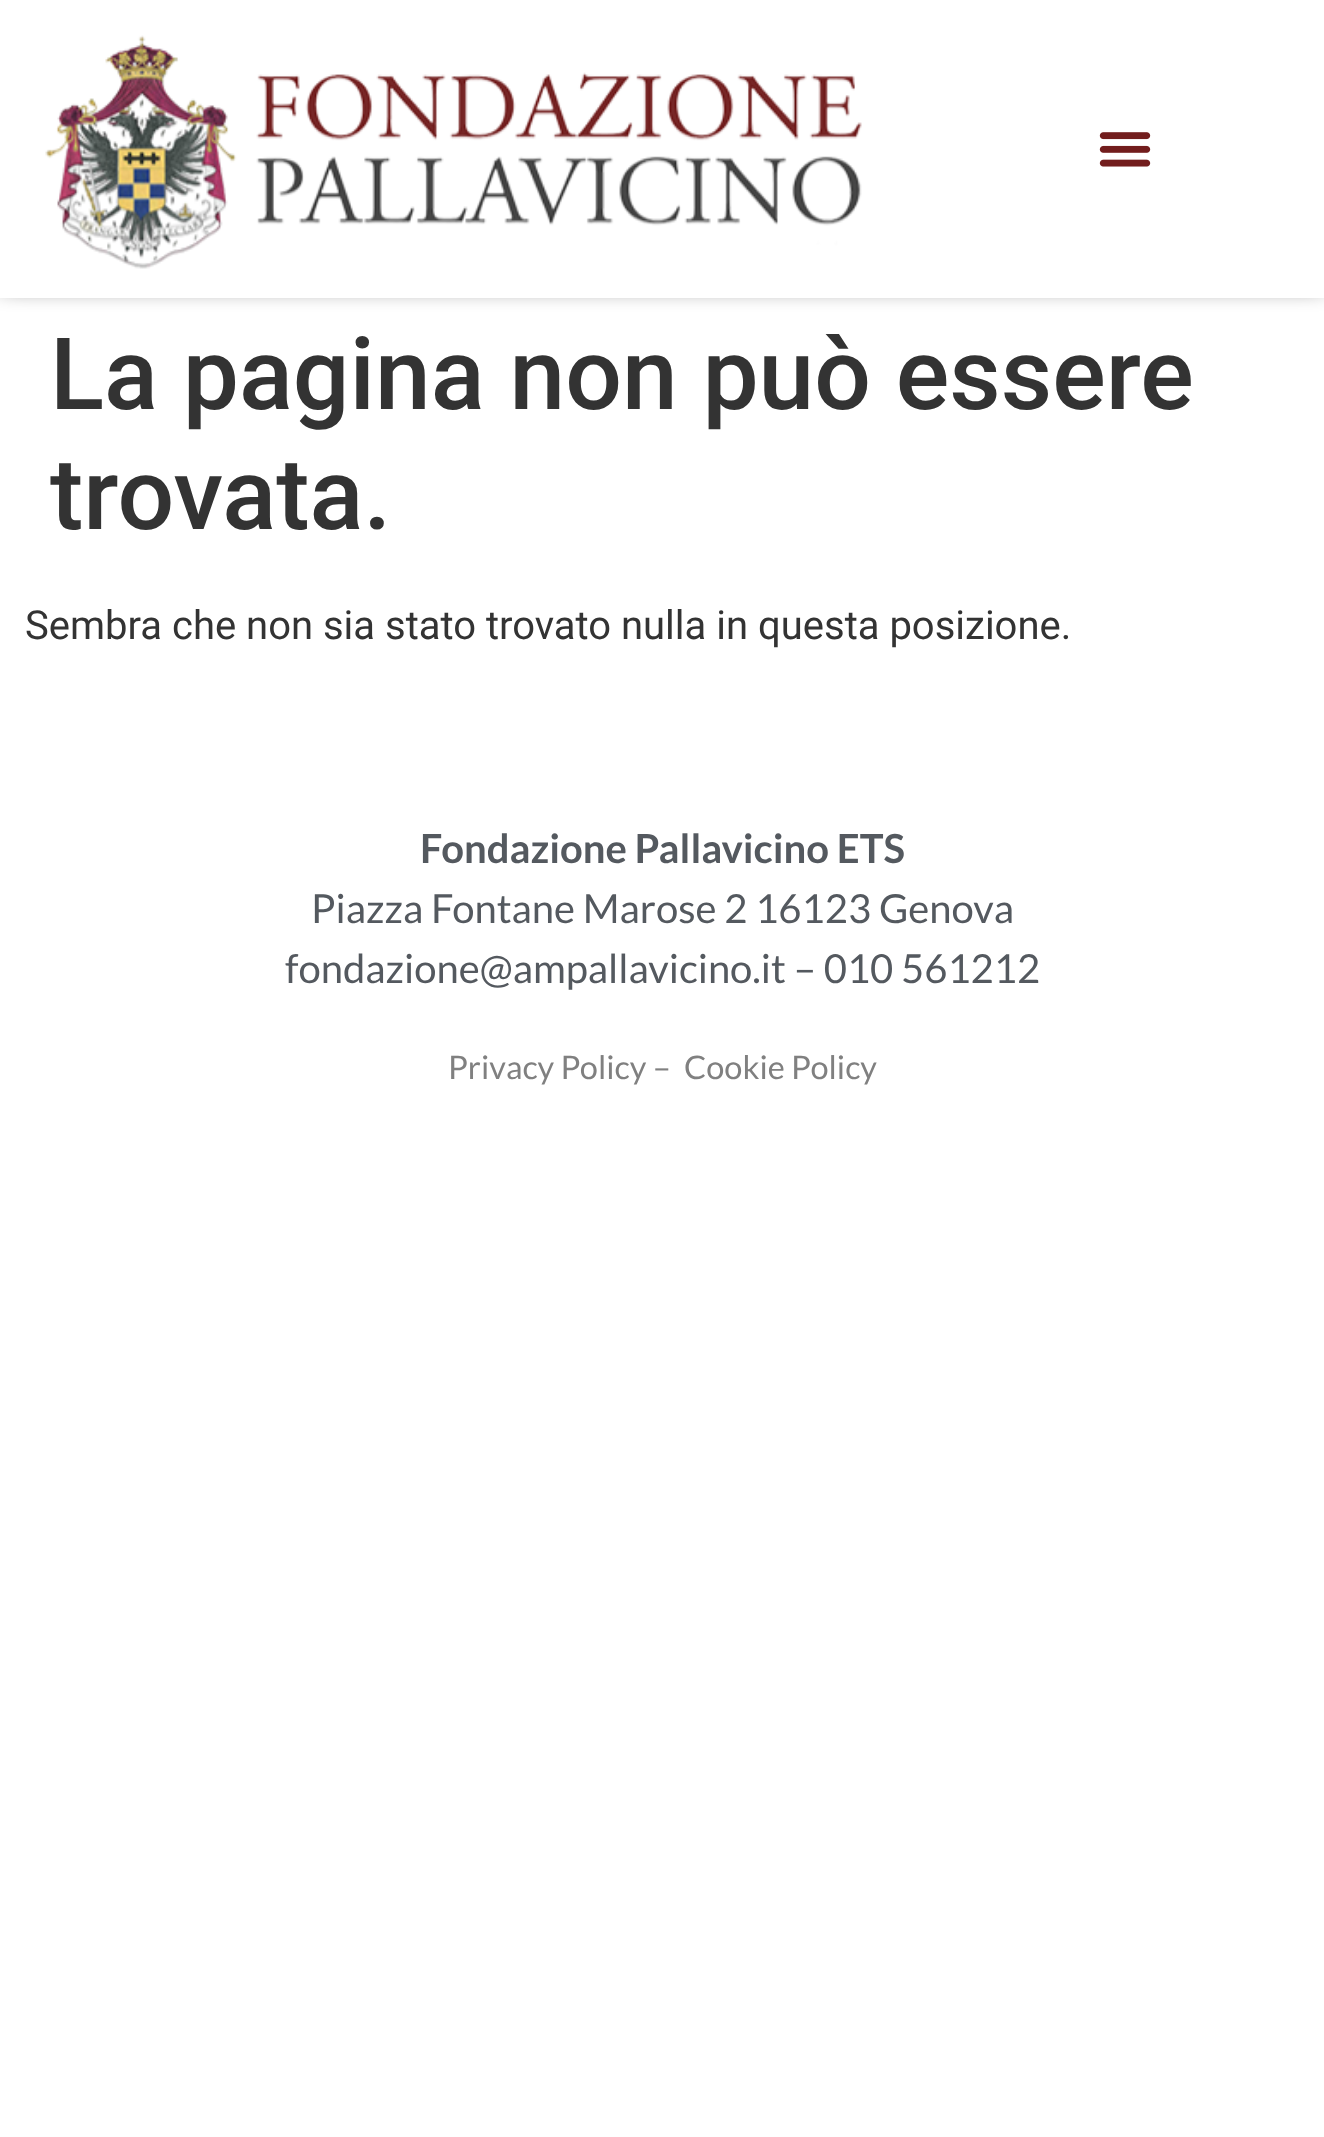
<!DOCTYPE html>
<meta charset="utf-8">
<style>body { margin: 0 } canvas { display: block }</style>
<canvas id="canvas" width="1324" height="2137"></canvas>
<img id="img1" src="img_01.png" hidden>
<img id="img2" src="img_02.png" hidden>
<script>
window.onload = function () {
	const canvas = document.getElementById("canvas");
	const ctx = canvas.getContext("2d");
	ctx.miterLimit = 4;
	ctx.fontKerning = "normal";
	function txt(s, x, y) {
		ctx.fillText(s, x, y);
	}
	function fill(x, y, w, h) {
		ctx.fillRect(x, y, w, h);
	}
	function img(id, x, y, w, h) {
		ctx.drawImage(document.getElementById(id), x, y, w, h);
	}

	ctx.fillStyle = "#FFFFFF";
	fill(0, 0, 1324, 2137);
	ctx.fillStyle = "#000000";
	ctx.filter = "blur(12.5px)";
	ctx.beginPath();
	ctx.rect(0, -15, 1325, 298);
	ctx.fill();
	ctx.filter = "none";
	ctx.fillStyle = "#FFFFFF";
	fill(0, 0, 1324, 298);
	img("img1", 45, 35, 817, 234);
	img("img2", 1099, 132, 52, 35);
	ctx.font = "500 100px Roboto";
	ctx.fillStyle = "#333333";
	txt("La pagina non può essere", 50, 409);
	txt("trovata.", 50, 529);
	ctx.font = "40px Roboto";
	txt("Sembra che non sia stato trovato nulla in questa posizione.", 25, 639);
	ctx.font = "bold 40px Lato";
	ctx.fillStyle = "#54595F";
	txt("Fondazione Pallavicino ETS", 420, 863);
	ctx.font = "40px Lato";
	txt("Piazza Fontane Marose 2 16123 Genova", 311, 923);
	txt("fondazione@ampallavicino.it – 010 561212", 285, 983);
	ctx.font = "32.5px Lato";
	ctx.fillStyle = "#808080";
	txt("Privacy Policy –", 448, 1079);
	txt("Cookie Policy", 684, 1079);
};
</script>
